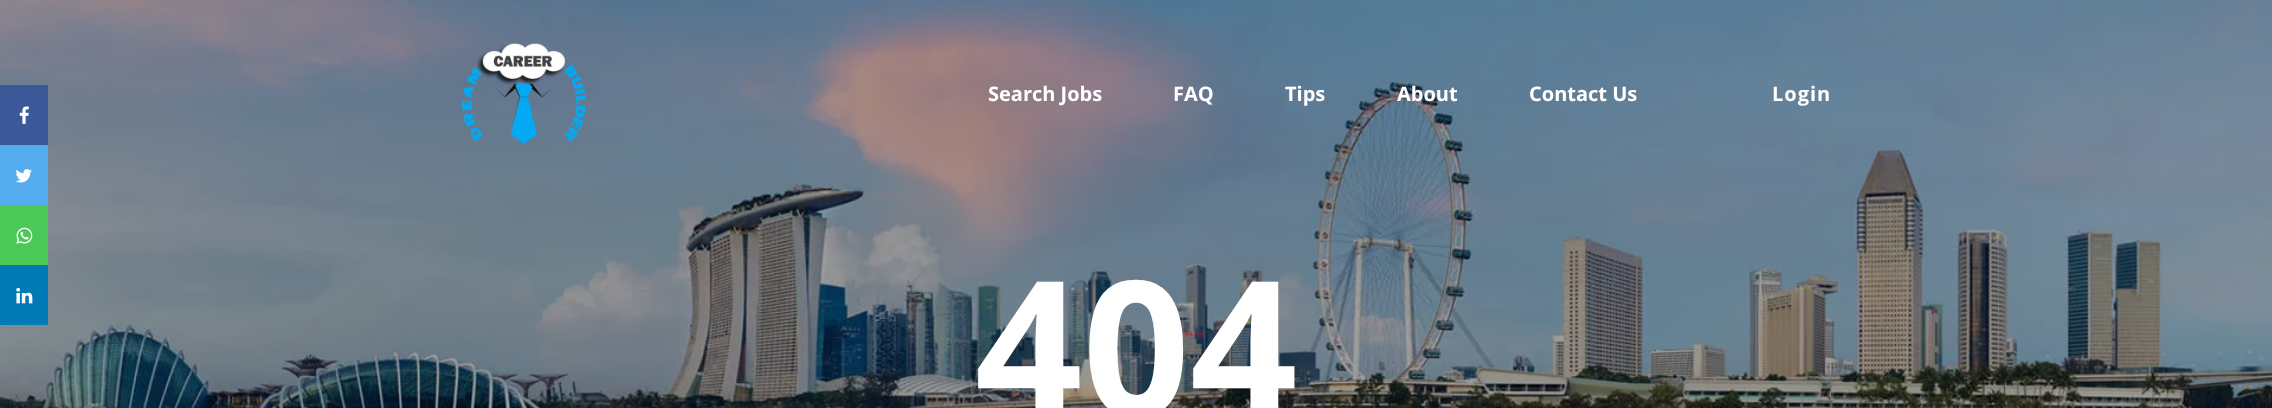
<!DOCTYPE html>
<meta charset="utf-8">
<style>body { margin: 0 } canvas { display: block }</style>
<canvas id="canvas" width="2272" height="408"></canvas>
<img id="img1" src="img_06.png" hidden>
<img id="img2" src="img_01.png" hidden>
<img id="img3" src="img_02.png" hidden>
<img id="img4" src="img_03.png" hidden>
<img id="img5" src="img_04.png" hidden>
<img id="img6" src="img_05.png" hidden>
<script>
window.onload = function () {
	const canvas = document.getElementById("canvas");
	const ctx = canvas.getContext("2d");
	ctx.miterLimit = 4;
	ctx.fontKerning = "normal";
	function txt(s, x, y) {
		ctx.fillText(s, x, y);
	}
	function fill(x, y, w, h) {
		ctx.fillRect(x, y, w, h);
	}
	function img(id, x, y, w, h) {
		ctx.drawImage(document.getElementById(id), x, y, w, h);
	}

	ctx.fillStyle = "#FFFFFF";
	fill(0, 0, 2272, 408);
	img("img1", 0, 0, 2272, 408);
	ctx.fillStyle = "#3B5998";
	fill(0, 85, 48, 60);
	img("img2", 19, 106, 10, 18);
	ctx.fillStyle = "#55ACEE";
	fill(0, 145, 48, 60);
	img("img3", 15, 169, 17, 14);
	ctx.fillStyle = "#4AC959";
	fill(0, 205, 48, 60);
	img("img4", 16, 227, 17, 17);
	ctx.fillStyle = "#007BB5";
	fill(0, 265, 48, 60);
	img("img5", 16, 288, 17, 16);
	img("img6", 462, 43, 124, 101);
	ctx.font = "bold 20px Open Sans";
	ctx.fillStyle = "#FFFFFF";
	txt("Search Jobs", 988, 101);
	txt("FAQ", 1173, 101);
	txt("Tips", 1285, 101);
	txt("About", 1397, 101);
	txt("Contact Us", 1529, 101);
	ctx.letterSpacing = "1px";
	txt("Login", 1772, 101);
	ctx.letterSpacing = "0px";
	ctx.font = "bold 188px Open Sans";
	txt("404", 975, 416);
};
</script>
